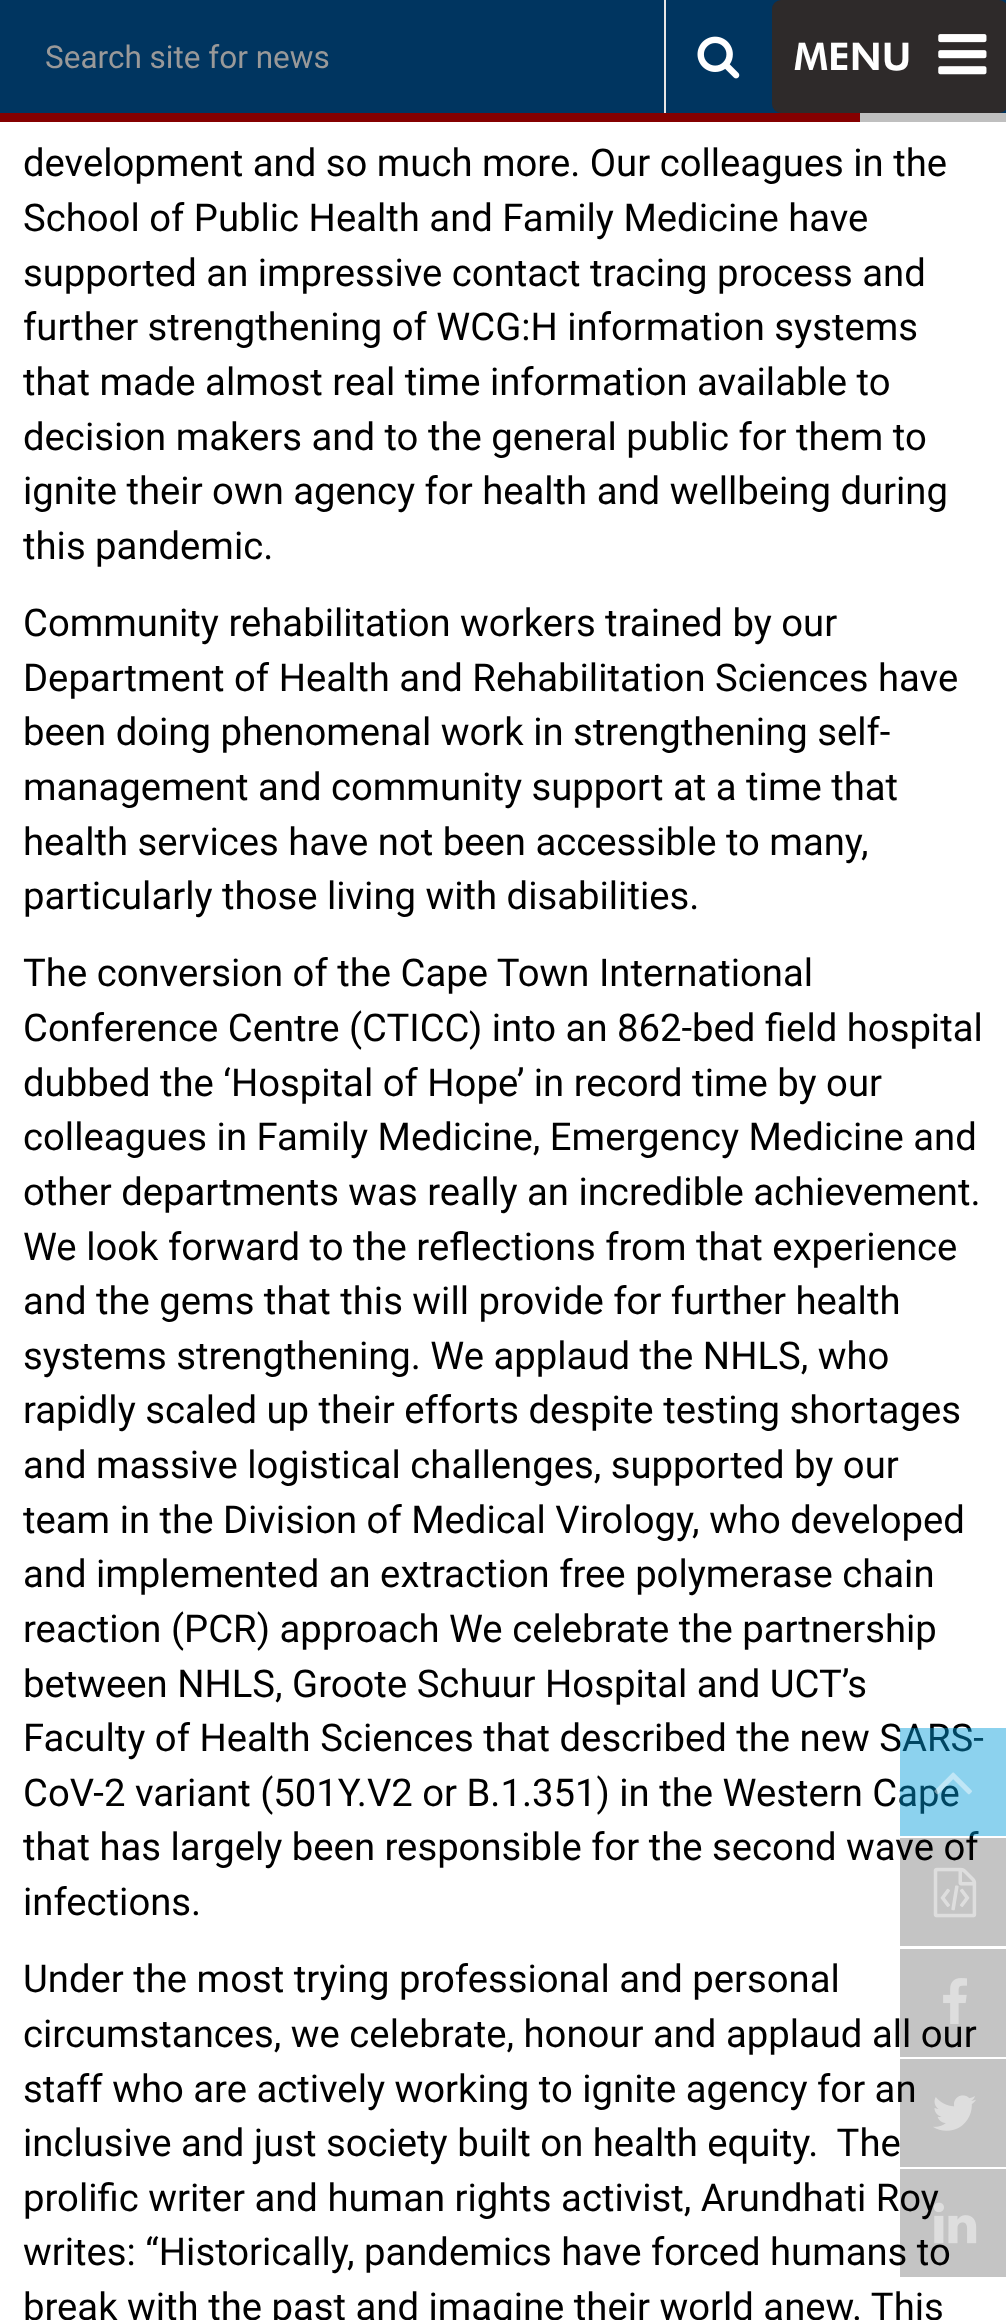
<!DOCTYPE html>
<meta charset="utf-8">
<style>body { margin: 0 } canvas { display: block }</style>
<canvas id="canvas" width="1006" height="2320"></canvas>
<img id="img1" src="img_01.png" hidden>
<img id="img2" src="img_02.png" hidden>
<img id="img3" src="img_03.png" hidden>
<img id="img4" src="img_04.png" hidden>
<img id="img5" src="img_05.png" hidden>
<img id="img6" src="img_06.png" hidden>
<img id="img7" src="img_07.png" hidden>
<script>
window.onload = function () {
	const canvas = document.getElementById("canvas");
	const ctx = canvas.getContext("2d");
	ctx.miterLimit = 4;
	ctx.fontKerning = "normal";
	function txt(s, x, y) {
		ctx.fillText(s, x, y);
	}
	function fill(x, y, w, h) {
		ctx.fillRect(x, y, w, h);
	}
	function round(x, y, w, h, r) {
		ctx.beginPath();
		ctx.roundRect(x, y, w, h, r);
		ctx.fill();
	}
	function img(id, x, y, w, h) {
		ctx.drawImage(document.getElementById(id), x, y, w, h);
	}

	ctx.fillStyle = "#FFFFFF";
	fill(0, 0, 1006, 2320);
	ctx.fillStyle = "#003560";
	fill(0, 0, 1006, 113);
	ctx.fillStyle = "#E7E5E5";
	fill(664, 0, 2, 113);
	img("img1", 697, 36, 43, 43);
	ctx.fillStyle = "#2E2A2A";
	round(772, 0, 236, 113, 9);
	img("img2", 938, 34, 49, 41);
	ctx.fillStyle = "#BFBFBF";
	fill(860, 113, 146, 9);
	ctx.fillStyle = "#850000";
	fill(0, 113, 860, 9);
	ctx.font = "31.5px Roboto";
	ctx.fillStyle = "#999999";
	txt("Search site for news", 45, 68);
	ctx.font = "900 38.25px Futura";
	ctx.fillStyle = "#FFFFFF";
	txt("MENU", 794, 70);
	ctx.font = "38.25px Roboto";
	ctx.fillStyle = "#000000";
	txt("development and so much more. Our colleagues in the", 23, 176);
	txt("School of Public Health and Family Medicine have", 23, 231);
	txt("supported an impressive contact tracing process and", 23, 286);
	txt("further strengthening of WCG:H information systems", 23, 340);
	txt("that made almost real time information available to", 23, 395);
	txt("decision makers and to the general public for them to", 23, 450);
	txt("ignite their own agency for health and wellbeing during", 23, 504);
	txt("this pandemic.", 23, 559);
	txt("Community rehabilitation workers trained by our", 23, 636);
	txt("Department of Health and Rehabilitation Sciences have", 23, 691);
	txt("been doing phenomenal work in strengthening self-", 23, 745);
	txt("management and community support at a time that", 23, 800);
	txt("health services have not been accessible to many,", 23, 855);
	txt("particularly those living with disabilities.", 23, 909);
	txt("The conversion of the Cape Town International", 23, 986);
	txt("Conference Centre (CTICC) into an 862-bed field hospital", 23, 1041);
	txt("dubbed the ‘Hospital of Hope’ in record time by our", 23, 1096);
	txt("colleagues in Family Medicine, Emergency Medicine and", 23, 1150);
	txt("other departments was really an incredible achievement.", 23, 1205);
	txt("We look forward to the reflections from that experience", 23, 1260);
	txt("and the gems that this will provide for further health", 23, 1314);
	txt("systems strengthening. We applaud the NHLS, who", 23, 1369);
	txt("rapidly scaled up their efforts despite testing shortages", 23, 1423);
	txt("and massive logistical challenges, supported by our", 23, 1478);
	txt("team in the Division of Medical Virology, who developed", 23, 1533);
	txt("and implemented an extraction free polymerase chain", 23, 1587);
	txt("reaction (PCR) approach We celebrate the partnership", 23, 1642);
	txt("between NHLS, Groote Schuur Hospital and UCT’s", 23, 1697);
	txt("Faculty of Health Sciences that described the new SARS-", 23, 1751);
	txt("CoV-2 variant (501Y.V2 or B.1.351) in the Western Cape", 23, 1806);
	txt("that has largely been responsible for the second wave of", 23, 1860);
	txt("infections.", 23, 1915);
	txt("Under the most trying professional and personal", 23, 1992);
	txt("circumstances, we celebrate, honour and applaud all our", 23, 2047);
	txt("staff who are actively working to ignite agency for an", 23, 2102);
	txt("inclusive and just society built on health equity.  The", 23, 2156);
	txt("prolific writer and human rights activist, Arundhati Roy", 23, 2211);
	txt("writes: “Historically, pandemics have forced humans to", 23, 2265);
	txt("break with the past and imagine their world anew. This", 23, 2320);
	ctx.fillStyle = "rgba(0, 155, 218, 0.45)";
	fill(900, 1728, 106, 108);
	img("img3", 934, 1772, 38, 23);
	ctx.fillStyle = "rgba(0, 0, 0, 0.23)";
	fill(900, 1838, 106, 108);
	img("img4", 933, 1867, 44, 51);
	fill(900, 1949, 106, 108);
	img("img5", 943, 1978, 24, 46);
	fill(900, 2059, 106, 108);
	img("img6", 933, 2095, 43, 36);
	fill(900, 2169, 106, 108);
	img("img7", 933, 2202, 44, 42);
};
</script>
